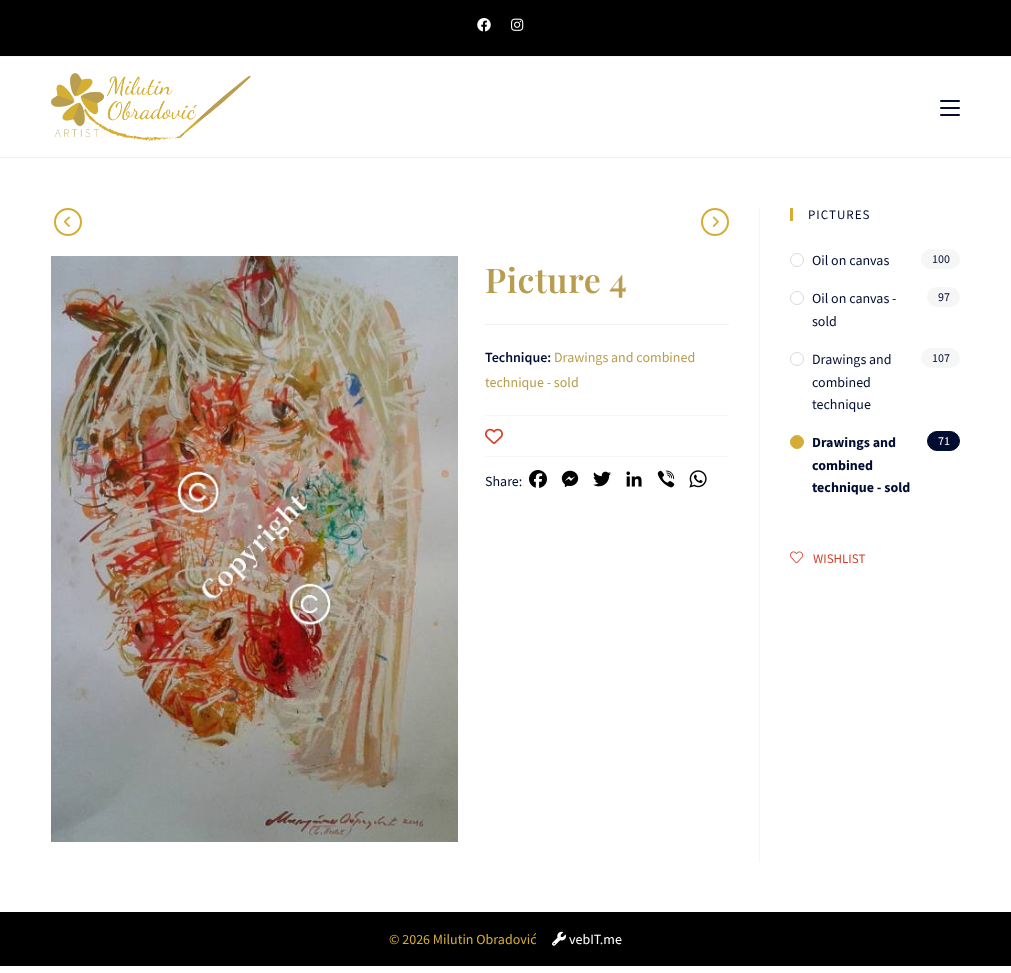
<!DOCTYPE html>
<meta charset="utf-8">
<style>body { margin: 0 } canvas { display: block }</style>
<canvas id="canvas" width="1011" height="973"></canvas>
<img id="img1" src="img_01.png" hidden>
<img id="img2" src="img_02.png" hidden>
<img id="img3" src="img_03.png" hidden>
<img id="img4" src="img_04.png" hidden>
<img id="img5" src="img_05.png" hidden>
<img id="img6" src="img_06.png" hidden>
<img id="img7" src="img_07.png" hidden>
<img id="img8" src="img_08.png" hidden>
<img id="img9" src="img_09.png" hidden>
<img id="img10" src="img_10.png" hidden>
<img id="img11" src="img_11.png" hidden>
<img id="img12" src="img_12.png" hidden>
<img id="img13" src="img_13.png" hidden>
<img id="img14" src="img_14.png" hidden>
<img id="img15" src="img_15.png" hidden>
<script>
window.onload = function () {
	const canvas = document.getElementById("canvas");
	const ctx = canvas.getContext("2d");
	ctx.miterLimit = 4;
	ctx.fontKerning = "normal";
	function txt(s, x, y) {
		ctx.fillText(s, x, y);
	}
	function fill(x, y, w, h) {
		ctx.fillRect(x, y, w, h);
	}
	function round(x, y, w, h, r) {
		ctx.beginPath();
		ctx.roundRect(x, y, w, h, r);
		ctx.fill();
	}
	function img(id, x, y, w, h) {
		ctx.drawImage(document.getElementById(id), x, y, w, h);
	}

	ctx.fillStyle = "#FFFFFF";
	fill(0, 0, 1011, 973);
	ctx.fillStyle = "#000000";
	fill(0, 0, 1011, 56);
	ctx.fillStyle = "#F5F5F5";
	fill(0, 56, 1011, 1);
	img("img1", 477, 18, 14, 14);
	img("img2", 511, 18, 13, 13);
	ctx.fillStyle = "#F1F1F1";
	fill(0, 157, 1011, 1);
	img("img3", 51, 73, 200, 68);
	ctx.fillStyle = "#000C30";
	round(940, 107, 20, 2, 1);
	round(940, 100, 20, 2, 1);
	round(940, 114, 20, 2, 1);
	ctx.fillStyle = "#F5F5F5";
	fill(759, 208, 1, 654);
	ctx.beginPath();
	ctx.arc(68, 222, 13, 0, Math.PI * 2);
	ctx.strokeStyle = "#D5AD36";
	ctx.lineWidth = 2;
	ctx.stroke();
	img("img4", 63, 216, 7, 11);
	ctx.beginPath();
	ctx.arc(715, 222, 13, 0, Math.PI * 2);
	ctx.stroke();
	img("img5", 712, 216, 7, 11);
	img("img6", 51, 256, 407, 586);
	ctx.fillStyle = "#F1F1F1";
	fill(485, 324, 244, 1);
	ctx.fillStyle = "#F5F5F5";
	fill(485, 415, 244, 1);
	img("img7", 485, 428, 18, 17);
	fill(485, 456, 244, 1);
	img("img8", 529, 470, 18, 18);
	img("img9", 561, 470, 18, 18);
	img("img10", 593, 471, 18, 16);
	img("img11", 626, 471, 16, 16);
	img("img12", 657, 470, 18, 18);
	img("img13", 689, 470, 18, 18);
	ctx.fillStyle = "#D5AD36";
	fill(790, 208, 3, 13);
	ctx.beginPath();
	ctx.arc(797, 260, 6.5, 0, Math.PI * 2);
	ctx.strokeStyle = "#D9D9D9";
	ctx.lineWidth = 1;
	ctx.stroke();
	ctx.fillStyle = "#F6F6F6";
	round(921, 249, 39, 20, 10);
	ctx.beginPath();
	ctx.arc(797, 298, 6.5, 0, Math.PI * 2);
	ctx.stroke();
	round(927, 287, 33, 20, 10);
	ctx.beginPath();
	ctx.arc(797, 359, 6.5, 0, Math.PI * 2);
	ctx.stroke();
	round(921, 348, 39, 20, 10);
	ctx.fillStyle = "#D5AD36";
	ctx.beginPath();
	ctx.arc(797, 442, 6.5, 0, Math.PI * 2);
	ctx.fill();
	ctx.strokeStyle = "#D5AD36";
	ctx.stroke();
	ctx.fillStyle = "#000C30";
	ctx.beginPath();
	ctx.roundRect(927.5, 431.5, 32, 19, 9.5);
	ctx.fill();
	ctx.strokeStyle = "#000C30";
	ctx.stroke();
	img("img14", 790, 551, 13, 13);
	ctx.fillStyle = "#000000";
	fill(0, 912, 1011, 54);
	img("img15", 552, 931, 14, 15);
	ctx.letterSpacing = "0.5px";
	ctx.font = "600 34px Playfair Display";
	ctx.fillStyle = "#B89D4F";
	txt("Picture 4", 485, 293);
	ctx.letterSpacing = "0px";
	ctx.font = "600 14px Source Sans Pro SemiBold";
	ctx.fillStyle = "#000C30";
	txt("Technique:", 485, 362);
	ctx.font = "14px Source Sans Pro";
	ctx.fillStyle = "#B89D4F";
	txt("Drawings and combined", 554, 362);
	txt("technique - sold", 485, 387);
	ctx.fillStyle = "#000C30";
	txt("Share:", 485, 486);
	ctx.letterSpacing = "1px";
	ctx.font = "13px Source Sans Pro";
	txt("PICTURES", 808, 219);
	ctx.letterSpacing = "0px";
	ctx.font = "14px Source Sans Pro";
	txt("Oil on canvas", 812, 265);
	ctx.font = "12px Source Sans Pro";
	txt("100", 932, 263);
	ctx.font = "14px Source Sans Pro";
	txt("Oil on canvas -", 812, 303);
	txt("sold", 812, 326);
	ctx.font = "12px Source Sans Pro";
	txt("97", 938, 301);
	ctx.font = "14px Source Sans Pro";
	txt("Drawings and", 812, 364);
	txt("combined", 812, 387);
	txt("technique", 812, 409);
	ctx.font = "12px Source Sans Pro";
	txt("107", 932, 362);
	ctx.font = "bold 14px Source Sans Pro";
	txt("Drawings and", 812, 447);
	txt("combined", 812, 470);
	txt("technique - sold", 812, 492);
	ctx.font = "12px Source Sans Pro";
	ctx.fillStyle = "#FFFFFF";
	txt("71", 938, 445);
	ctx.font = "13px Source Sans Pro";
	ctx.fillStyle = "#D43F28";
	txt("WISHLIST", 813, 563);
	ctx.font = "14px Source Sans Pro";
	ctx.fillStyle = "#D5AD36";
	txt("© 2026 Milutin Obradović", 389, 944);
	ctx.fillStyle = "#FFFFFF";
	txt("vebIT.me", 569, 944);
};
</script>
